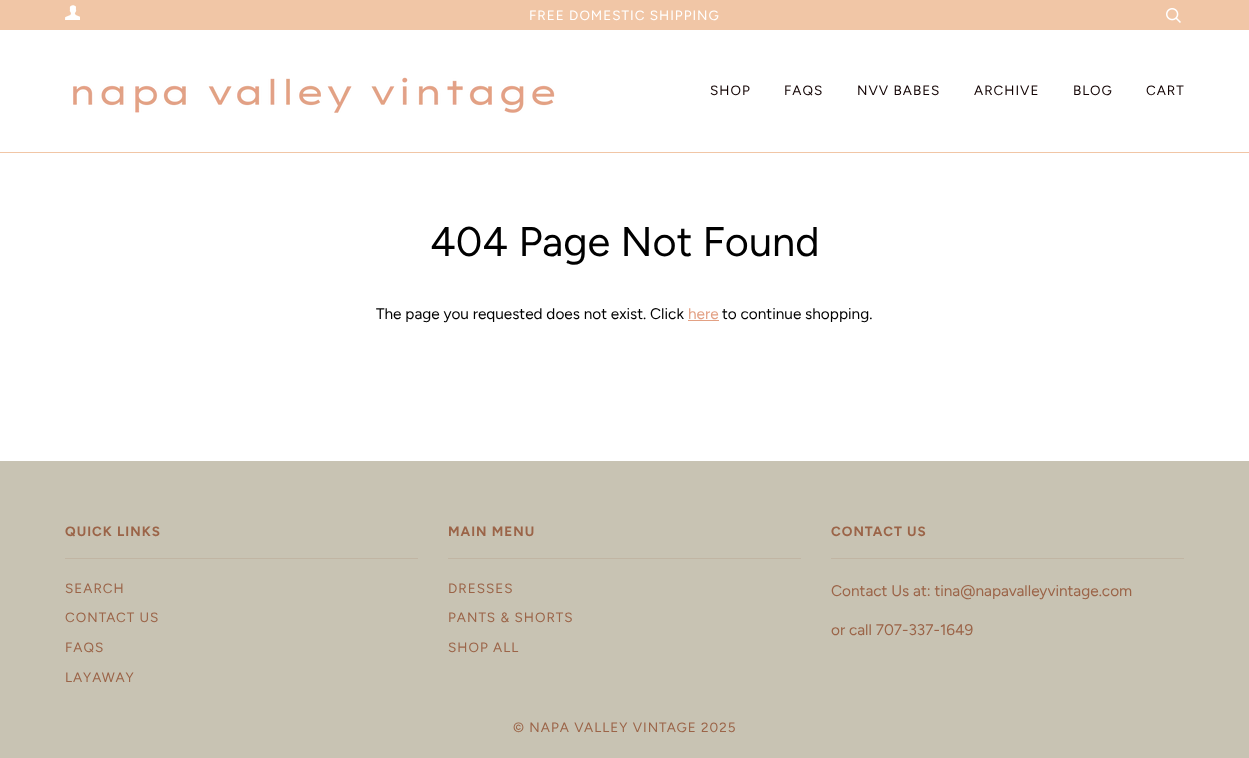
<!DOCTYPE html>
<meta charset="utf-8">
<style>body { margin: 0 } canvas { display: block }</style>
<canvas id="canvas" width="1249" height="758"></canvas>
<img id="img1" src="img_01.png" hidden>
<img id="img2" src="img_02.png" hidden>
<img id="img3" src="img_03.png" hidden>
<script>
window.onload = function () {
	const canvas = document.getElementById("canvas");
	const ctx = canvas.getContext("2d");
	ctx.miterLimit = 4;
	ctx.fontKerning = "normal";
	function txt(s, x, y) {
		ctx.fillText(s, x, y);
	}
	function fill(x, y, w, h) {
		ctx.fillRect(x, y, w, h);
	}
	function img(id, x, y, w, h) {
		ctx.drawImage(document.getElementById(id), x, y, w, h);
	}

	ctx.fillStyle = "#FFFFFF";
	fill(0, 0, 1249, 758);
	ctx.fillStyle = "#F1C6A6";
	fill(0, 0, 1249, 30);
	img("img1", 65, 5, 15, 15);
	img("img2", 1166, 8, 15, 15);
	fill(0, 152, 1249, 1);
	img("img3", 73, 77, 482, 36);
	ctx.fillStyle = "#E3A184";
	fill(688, 320, 31, 1);
	ctx.fillStyle = "#C8C3B3";
	fill(0, 461, 1249, 297);
	ctx.fillStyle = "#C1B5A3";
	fill(65, 558, 353, 1);
	fill(448, 558, 353, 1);
	fill(831, 558, 353, 1);
	ctx.letterSpacing = "1px";
	ctx.font = "13.5px Figtree";
	ctx.fillStyle = "#FFFFFF";
	txt("FREE DOMESTIC SHIPPING", 529, 20);
	ctx.fillStyle = "#110202";
	txt("SHOP", 710, 95);
	txt("FAQS", 784, 95);
	txt("NVV BABES", 857, 95);
	txt("ARCHIVE", 974, 95);
	txt("BLOG", 1073, 95);
	txt("CART", 1146, 95);
	ctx.letterSpacing = "0px";
	ctx.font = "41.5px Figtree";
	ctx.fillStyle = "#000000";
	txt("404 Page Not Found", 430, 256);
	ctx.font = "15.4px Figtree";
	txt("The page you requested does not exist. Click", 376, 319);
	ctx.fillStyle = "#E3A184";
	txt("here", 688, 319);
	ctx.fillStyle = "#000000";
	txt("to continue shopping.", 722, 319);
	ctx.letterSpacing = "1px";
	ctx.font = "bold 13.5px Figtree";
	ctx.fillStyle = "#9B6448";
	txt("QUICK LINKS", 65, 536);
	ctx.font = "13.5px Figtree";
	txt("SEARCH", 65, 593);
	txt("CONTACT US", 65, 622);
	txt("FAQS", 65, 652);
	txt("LAYAWAY", 65, 682);
	ctx.font = "bold 13.5px Figtree";
	txt("MAIN MENU", 448, 536);
	ctx.font = "13.5px Figtree";
	txt("DRESSES", 448, 593);
	txt("PANTS & SHORTS", 448, 622);
	txt("SHOP ALL", 448, 652);
	ctx.font = "bold 13.5px Figtree";
	txt("CONTACT US", 831, 536);
	ctx.letterSpacing = "0px";
	ctx.font = "15.4px Figtree";
	txt("Contact Us at: tina@napavalleyvintage.com", 831, 596);
	txt("or call 707-337-1649", 831, 635);
	ctx.letterSpacing = "1px";
	ctx.font = "13.5px Figtree";
	txt("© NAPA VALLEY VINTAGE 2025", 513, 732);
};
</script>
